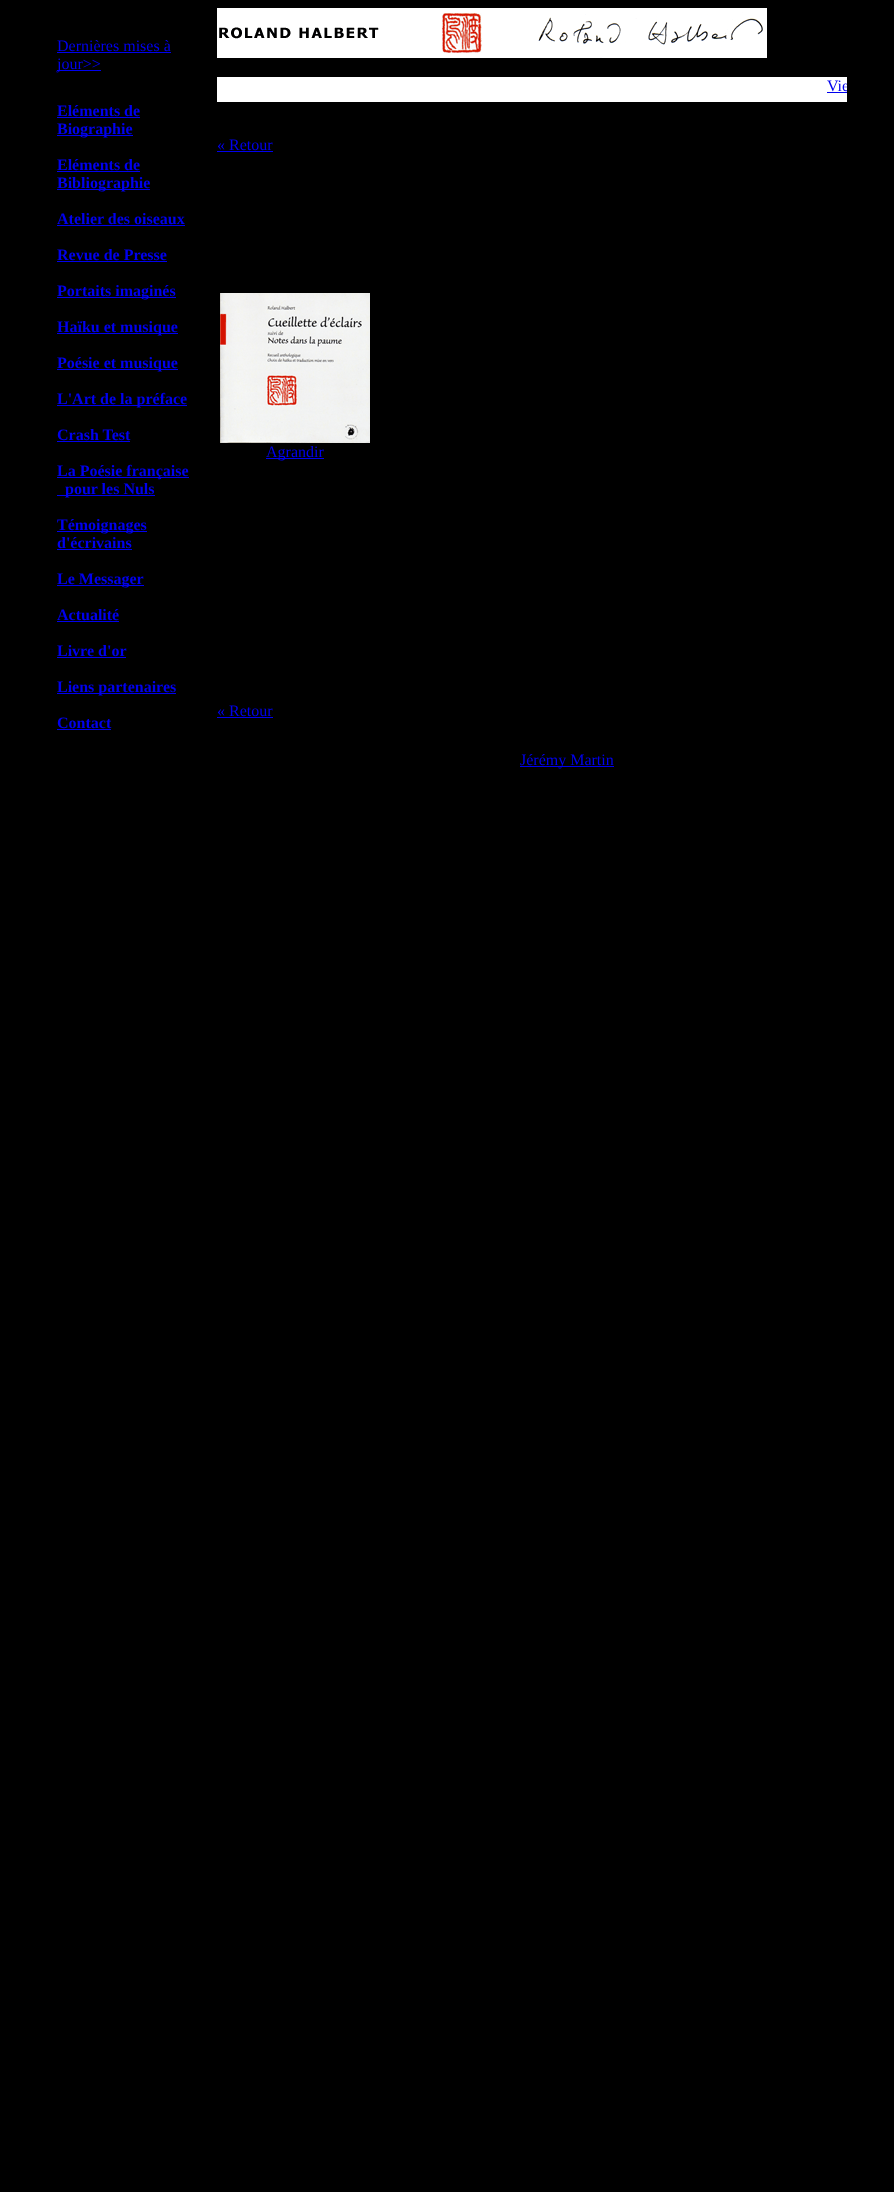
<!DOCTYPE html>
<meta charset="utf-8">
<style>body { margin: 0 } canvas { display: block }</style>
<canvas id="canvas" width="894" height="2192"></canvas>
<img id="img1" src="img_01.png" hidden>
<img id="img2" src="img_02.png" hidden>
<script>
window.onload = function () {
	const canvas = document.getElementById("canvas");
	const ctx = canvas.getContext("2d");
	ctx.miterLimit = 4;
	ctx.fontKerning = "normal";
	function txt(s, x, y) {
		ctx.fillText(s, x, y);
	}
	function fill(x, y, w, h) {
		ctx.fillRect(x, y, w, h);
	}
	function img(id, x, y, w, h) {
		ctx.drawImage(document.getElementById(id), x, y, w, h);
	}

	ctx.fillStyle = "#000000";
	fill(0, 0, 894, 2192);
	ctx.fillStyle = "#0000EE";
	fill(57, 52, 114, 1);
	fill(57, 70, 44, 1);
	img("img1", 217, 8, 550, 50);
	ctx.fillStyle = "#FFFFFF";
	fill(217, 77, 630, 25);
	ctx.fillStyle = "#0000EE";
	fill(827, 92, 20, 1);
	fill(57, 117, 83, 1);
	fill(57, 135, 76, 1);
	fill(57, 171, 83, 1);
	fill(57, 189, 93, 1);
	fill(57, 225, 128, 1);
	fill(57, 261, 110, 1);
	fill(57, 297, 119, 1);
	fill(57, 333, 121, 1);
	fill(57, 369, 121, 1);
	fill(57, 405, 130, 1);
	fill(57, 441, 73, 1);
	fill(57, 477, 132, 1);
	fill(57, 495, 98, 1);
	fill(57, 531, 90, 1);
	fill(57, 549, 75, 1);
	fill(57, 585, 87, 1);
	fill(57, 621, 62, 1);
	fill(57, 657, 69, 1);
	fill(57, 693, 119, 1);
	fill(57, 729, 54, 1);
	fill(217, 151, 56, 1);
	img("img2", 220, 293, 150, 150);
	fill(266, 458, 58, 1);
	fill(217, 717, 56, 1);
	fill(520, 766, 94, 1);
	ctx.font = "16px Liberation Serif";
	txt("Dernières mises à", 57, 51);
	txt("jour>>", 57, 69);
	ctx.save();
	ctx.beginPath();
	ctx.rect(217, 77, 630, 25);
	ctx.clip();
	txt("Vie", 827, 91);
	ctx.restore();
	ctx.font = "bold 16px Liberation Serif";
	txt("Eléments de", 57, 116);
	txt("Biographie", 57, 134);
	txt("Eléments de", 57, 170);
	txt("Bibliographie", 57, 188);
	txt("Atelier des oiseaux", 57, 224);
	txt("Revue de Presse", 57, 260);
	txt("Portaits imaginés", 57, 296);
	txt("Haïku et musique", 57, 332);
	txt("Poésie et musique", 57, 368);
	txt("L'Art de la préface", 57, 404);
	txt("Crash Test", 57, 440);
	txt("La Poésie française", 57, 476);
	txt("pour les Nuls", 65, 494);
	txt("Témoignages", 57, 530);
	txt("d'écrivains", 57, 548);
	txt("Le Messager", 57, 584);
	txt("Actualité", 57, 620);
	txt("Livre d'or", 57, 656);
	txt("Liens partenaires", 57, 692);
	txt("Contact", 57, 728);
	ctx.font = "16px Liberation Serif";
	txt("« Retour", 217, 150);
	txt("Agrandir", 266, 457);
	txt("« Retour", 217, 716);
	txt("Jérémy Martin", 520, 765);
};
</script>
